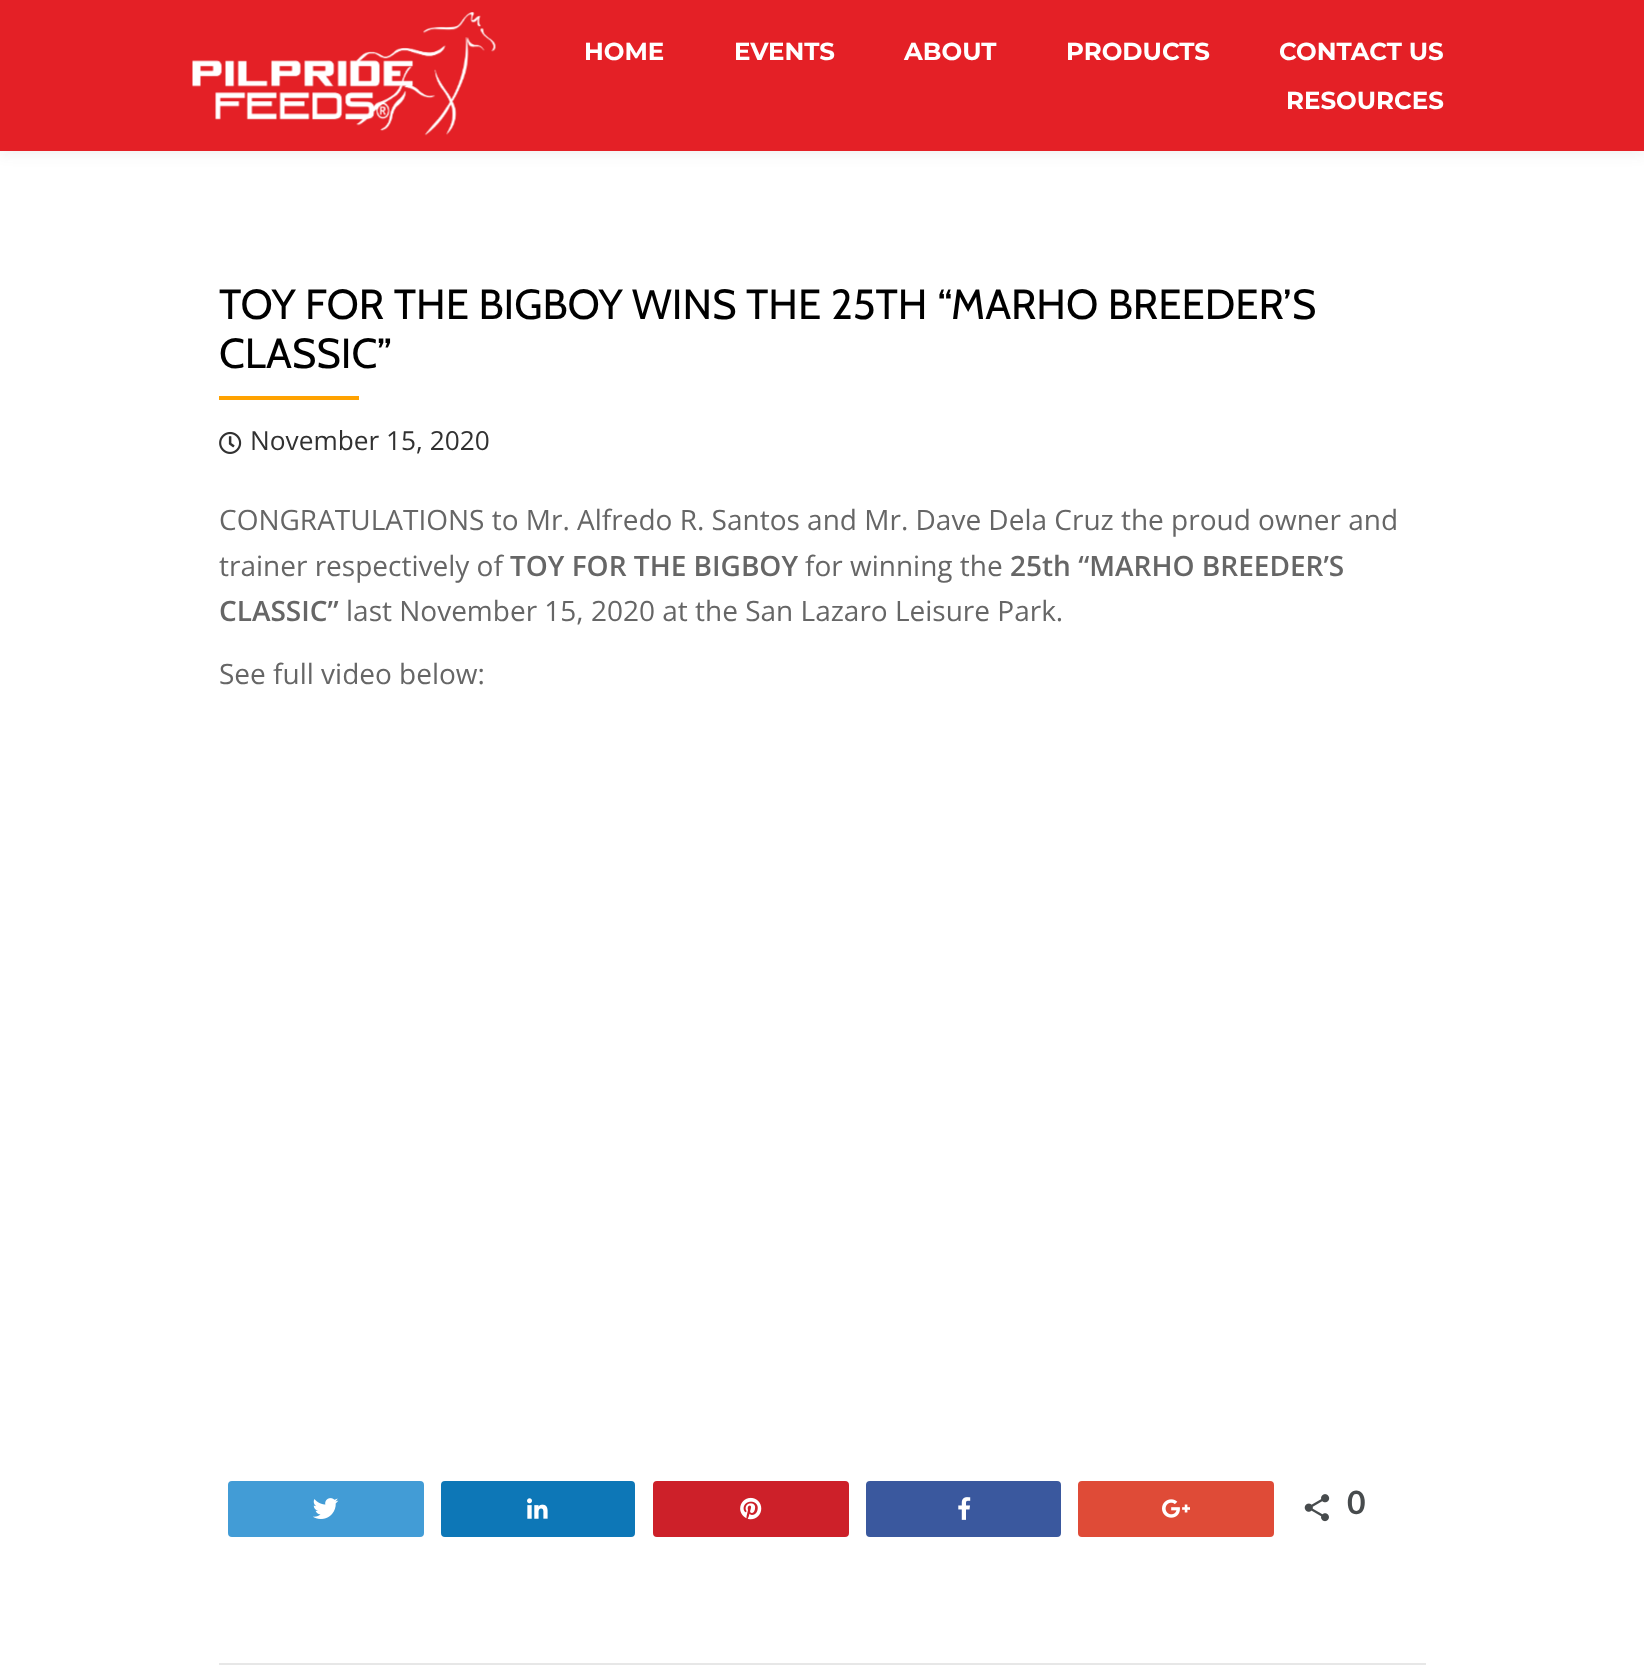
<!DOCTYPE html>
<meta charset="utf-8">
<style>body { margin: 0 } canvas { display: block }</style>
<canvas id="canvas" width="1644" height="1668"></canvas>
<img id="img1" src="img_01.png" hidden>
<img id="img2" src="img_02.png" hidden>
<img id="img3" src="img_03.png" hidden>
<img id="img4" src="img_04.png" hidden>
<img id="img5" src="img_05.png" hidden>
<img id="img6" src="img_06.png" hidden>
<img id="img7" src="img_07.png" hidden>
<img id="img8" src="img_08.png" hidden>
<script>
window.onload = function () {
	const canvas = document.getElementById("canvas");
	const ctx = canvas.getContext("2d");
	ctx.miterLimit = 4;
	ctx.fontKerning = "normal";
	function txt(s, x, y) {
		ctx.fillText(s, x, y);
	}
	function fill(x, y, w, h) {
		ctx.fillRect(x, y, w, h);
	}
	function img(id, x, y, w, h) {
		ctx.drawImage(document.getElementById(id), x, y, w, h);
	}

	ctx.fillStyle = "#FFFFFF";
	fill(0, 0, 1644, 1668);
	ctx.fillStyle = "rgba(50, 50, 50, 0.08)";
	ctx.filter = "blur(7px)";
	ctx.beginPath();
	ctx.rect(0, 4, 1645, 150);
	ctx.fill();
	ctx.filter = "none";
	ctx.fillStyle = "#E42026";
	fill(0, 0, 1644, 151);
	img("img1", 192, 12, 304, 124);
	ctx.fillStyle = "#FFA200";
	fill(219, 396, 140, 4);
	img("img2", 219, 431, 23, 23);
	ctx.fillStyle = "#429CD6";
	ctx.beginPath();
	ctx.roundRect(229, 1482, 194, 54, 3);
	ctx.fill();
	ctx.strokeStyle = "#429CD6";
	ctx.lineWidth = 2;
	ctx.stroke();
	img("img3", 313, 1498, 26, 21);
	ctx.fillStyle = "#0D77B7";
	ctx.beginPath();
	ctx.roundRect(442, 1482, 192, 54, 3);
	ctx.fill();
	ctx.strokeStyle = "#0D77B7";
	ctx.stroke();
	img("img4", 527, 1498, 21, 21);
	ctx.fillStyle = "#CD2029";
	ctx.beginPath();
	ctx.roundRect(654, 1482, 194, 54, 3);
	ctx.fill();
	ctx.strokeStyle = "#CD2029";
	ctx.stroke();
	img("img5", 740, 1497, 22, 23);
	ctx.fillStyle = "#3A589E";
	ctx.beginPath();
	ctx.roundRect(867, 1482, 193, 54, 3);
	ctx.fill();
	ctx.strokeStyle = "#3A589E";
	ctx.stroke();
	img("img6", 958, 1497, 13, 23);
	ctx.fillStyle = "#DF4B37";
	ctx.beginPath();
	ctx.roundRect(1079, 1482, 194, 54, 3);
	ctx.fill();
	ctx.strokeStyle = "#DF4B37";
	ctx.stroke();
	img("img7", 1162, 1499, 28, 19);
	img("img8", 1304, 1494, 26, 28);
	ctx.fillStyle = "#E7E7E7";
	fill(219, 1663, 1207, 2);
	ctx.font = "bold 24.5px Montserrat";
	ctx.fillStyle = "#FFFFFF";
	txt("HOME", 584, 60);
	txt("EVENTS", 734, 60);
	txt("ABOUT", 904, 60);
	txt("PRODUCTS", 1066, 60);
	txt("CONTACT US", 1279, 60);
	txt("RESOURCES", 1286, 109);
	ctx.font = "42px Cabin";
	ctx.fillStyle = "#000000";
	txt("TOY FOR THE BIGBOY WINS THE 25TH “MARHO BREEDER’S", 219, 319);
	txt("CLASSIC”", 219, 368);
	ctx.font = "26.25px Open Sans";
	ctx.fillStyle = "#313131";
	txt("November 15, 2020", 250, 450);
	ctx.font = "28px Open Sans";
	ctx.fillStyle = "#666666";
	txt("CONGRATULATIONS to Mr. Alfredo R. Santos and Mr. Dave Dela Cruz the proud owner and", 219, 530);
	txt("trainer respectively of", 219, 576);
	ctx.font = "600 28px Open Sans";
	txt("TOY FOR THE BIGBOY", 510, 576);
	ctx.font = "28px Open Sans";
	txt("for winning the", 805, 576);
	ctx.font = "600 28px Open Sans";
	txt("25th “MARHO BREEDER’S", 1010, 576);
	txt("CLASSIC”", 219, 621);
	ctx.font = "28px Open Sans";
	txt("last November 15, 2020 at the San Lazaro Leisure Park.", 346, 621);
	txt("See full video below:", 219, 684);
	ctx.font = "bold 32px Lato";
	ctx.fillStyle = "#474B4D";
	txt("0", 1347, 1514);
};
</script>
